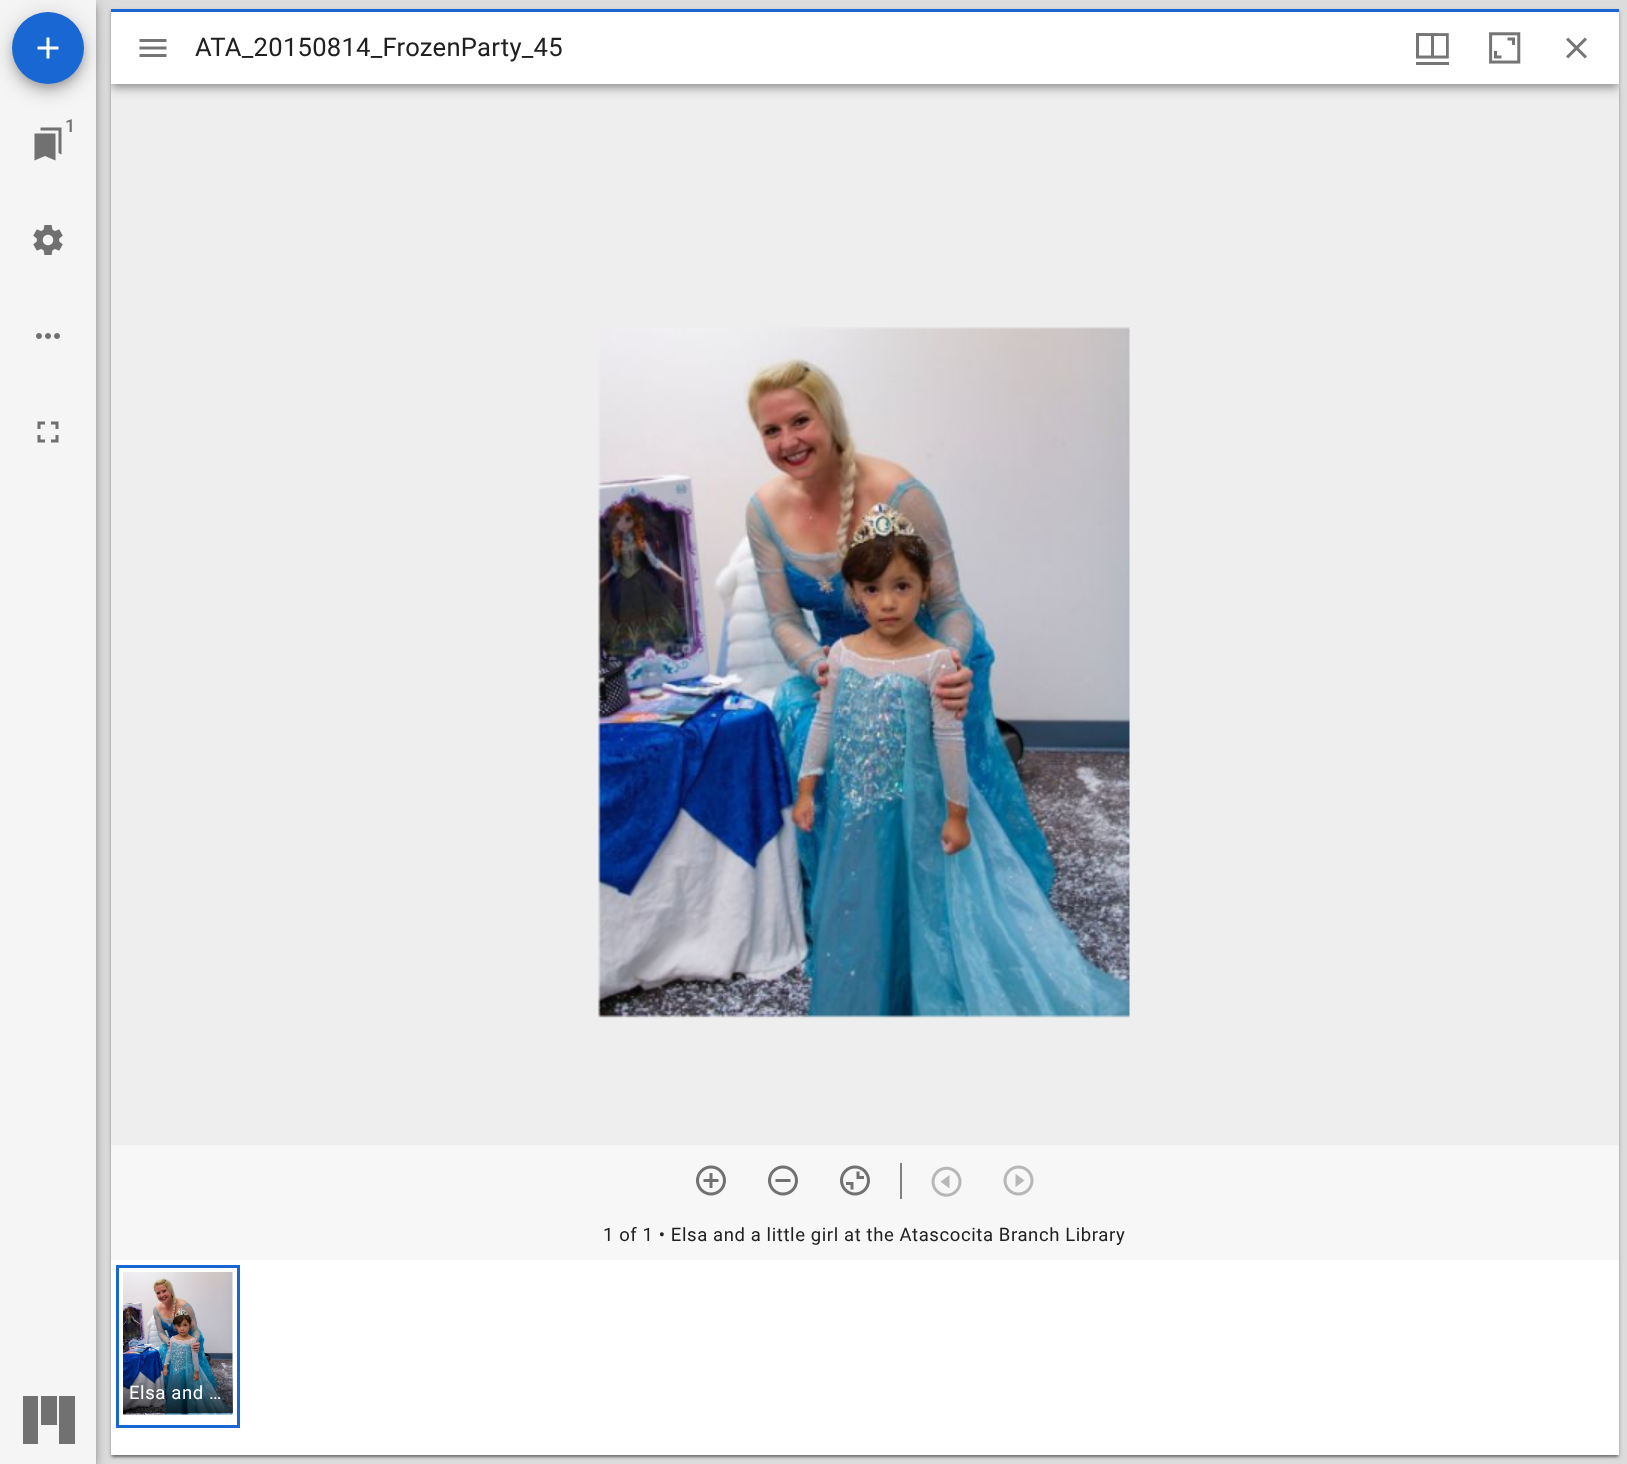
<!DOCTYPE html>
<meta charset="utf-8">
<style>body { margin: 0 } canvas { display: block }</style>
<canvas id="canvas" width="1627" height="1464"></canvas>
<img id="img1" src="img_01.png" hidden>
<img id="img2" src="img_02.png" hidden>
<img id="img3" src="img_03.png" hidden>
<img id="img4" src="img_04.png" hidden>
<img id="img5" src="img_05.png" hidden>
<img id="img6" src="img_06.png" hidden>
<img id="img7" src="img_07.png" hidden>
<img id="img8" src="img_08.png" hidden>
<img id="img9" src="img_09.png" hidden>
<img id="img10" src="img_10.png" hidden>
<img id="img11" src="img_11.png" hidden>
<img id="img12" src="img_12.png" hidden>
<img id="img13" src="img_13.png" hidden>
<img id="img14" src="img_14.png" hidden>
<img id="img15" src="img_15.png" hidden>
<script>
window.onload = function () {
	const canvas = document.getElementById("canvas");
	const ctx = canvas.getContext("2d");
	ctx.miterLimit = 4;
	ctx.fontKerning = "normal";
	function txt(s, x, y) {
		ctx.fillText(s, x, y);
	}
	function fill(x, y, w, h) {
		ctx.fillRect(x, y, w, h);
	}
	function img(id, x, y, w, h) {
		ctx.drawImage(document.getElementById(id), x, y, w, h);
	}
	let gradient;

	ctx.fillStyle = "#DCDCDC";
	fill(0, 0, 1627, 1464);
	ctx.fillStyle = "rgba(0, 0, 0, 0.2)";
	ctx.filter = "blur(1px)";
	ctx.beginPath();
	ctx.rect(113, 14, 1504, 1443);
	ctx.fill();
	ctx.filter = "none";
	ctx.filter = "blur(1px)";
	ctx.beginPath();
	ctx.rect(111, 11, 1508, 1446);
	ctx.fill();
	ctx.filter = "none";
	ctx.filter = "blur(2px)";
	ctx.beginPath();
	ctx.rect(111, 11, 1508, 1446);
	ctx.fill();
	ctx.filter = "none";
	ctx.fillStyle = "#EEEEEE";
	fill(111, 84, 1508, 1061);
	ctx.save();
	ctx.beginPath();
	ctx.rect(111, 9, 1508, 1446);
	ctx.clip();
	ctx.fillStyle = "rgba(0, 0, 0, 0.12)";
	ctx.filter = "blur(7.5px)";
	ctx.beginPath();
	ctx.rect(111, 11, 1508, 75);
	ctx.fill();
	ctx.filter = "none";
	ctx.fillStyle = "rgba(0, 0, 0, 0.14)";
	ctx.filter = "blur(4px)";
	ctx.beginPath();
	ctx.rect(111, 15, 1508, 75);
	ctx.fill();
	ctx.filter = "none";
	ctx.fillStyle = "rgba(0, 0, 0, 0.2)";
	ctx.filter = "blur(3px)";
	ctx.beginPath();
	ctx.rect(113, 14, 1504, 72);
	ctx.fill();
	ctx.filter = "none";
	ctx.restore();
	ctx.fillStyle = "#FFFFFF";
	fill(111, 12, 1508, 72);
	ctx.fillStyle = "#1967D2";
	fill(111, 9, 1508, 3);
	ctx.fillStyle = "#F7F7F7";
	fill(111, 1145, 1508, 115);
	ctx.fillStyle = "#FFFFFF";
	fill(111, 1260, 1508, 195);
	ctx.strokeStyle = "#1967D2";
	ctx.lineWidth = 3;
	ctx.strokeRect(117.5, 1266.5, 121, 160);
	ctx.fillStyle = "rgba(0, 0, 0, 0.12)";
	ctx.filter = "blur(7.5px)";
	ctx.beginPath();
	ctx.rect(0, 2, 96, 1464);
	ctx.fill();
	ctx.filter = "none";
	ctx.fillStyle = "rgba(0, 0, 0, 0.14)";
	ctx.filter = "blur(4px)";
	ctx.beginPath();
	ctx.rect(0, 6, 96, 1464);
	ctx.fill();
	ctx.filter = "none";
	ctx.fillStyle = "rgba(0, 0, 0, 0.2)";
	ctx.filter = "blur(3px)";
	ctx.beginPath();
	ctx.rect(2, 5, 93, 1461);
	ctx.fill();
	ctx.filter = "none";
	ctx.fillStyle = "#F5F5F5";
	fill(0, 0, 96, 1464);
	ctx.fillStyle = "rgba(0, 0, 0, 0.12)";
	ctx.filter = "blur(13.5px)";
	ctx.beginPath();
	ctx.roundRect(12, 14, 72, 72, 36);
	ctx.fill();
	ctx.filter = "none";
	ctx.fillStyle = "rgba(0, 0, 0, 0.14)";
	ctx.filter = "blur(7.5px)";
	ctx.beginPath();
	ctx.roundRect(12, 21, 72, 72, 36);
	ctx.fill();
	ctx.filter = "none";
	ctx.fillStyle = "rgba(0, 0, 0, 0.2)";
	ctx.filter = "blur(4px)";
	ctx.beginPath();
	ctx.roundRect(14, 18, 69, 69, 34.5);
	ctx.fill();
	ctx.filter = "none";
	ctx.fillStyle = "#1967D2";
	ctx.beginPath();
	ctx.arc(48, 48, 36, 0, Math.PI * 2);
	ctx.fill();
	img("img1", 37, 37, 22, 22);
	ctx.fillStyle = "#717171";
	ctx.beginPath();
	ctx.moveTo(58.5, 153);
	ctx.lineTo(61.5, 154.5);
	ctx.lineTo(61.5, 127.5);
	ctx.lineTo(40.5, 127.5);
	ctx.lineTo(40.5, 130.5);
	ctx.lineTo(58.5, 130.5);
	ctx.closePath();
	ctx.moveTo(55.5, 133.5);
	ctx.lineTo(34.5, 133.5);
	ctx.lineTo(34.5, 160.5);
	ctx.lineTo(45, 156);
	ctx.lineTo(55.5, 160.5);
	ctx.closePath();
	ctx.fill();
	img("img2", 33, 225, 30, 30);
	img("img3", 36, 333, 24, 6);
	img("img4", 37, 421, 22, 22);
	fill(23, 1396, 15, 48);
	fill(59, 1396, 16, 48);
	fill(41, 1396, 16, 29);
	img("img5", 139, 39, 28, 18);
	img("img6", 1416, 33, 33, 32);
	img("img7", 1489, 32, 32, 32);
	img("img8", 1566, 37, 21, 22);
	img("img9", 598, 327, 532, 691);
	img("img10", 696, 1165, 30, 31);
	img("img11", 768, 1165, 30, 31);
	img("img12", 840, 1165, 30, 31);
	ctx.fillStyle = "#808080";
	fill(900, 1163, 2, 36);
	img("img13", 931, 1166, 31, 31);
	img("img14", 1003, 1165, 31, 31);
	img("img15", 123, 1272, 110, 143);
	gradient = ctx.createLinearGradient(178, 1413, 178, 1371);
	gradient.addColorStop(0, "rgba(0, 0, 0, 0.7)");
	gradient.addColorStop(0.7, "rgba(0, 0, 0, 0.3)");
	gradient.addColorStop(1, "rgba(0, 0, 0, 0)");
	ctx.fillStyle = gradient;
	fill(123, 1372, 110, 41);
	ctx.font = "500 18px Roboto";
	ctx.fillStyle = "#717171";
	txt("1", 65, 132);
	ctx.letterSpacing = "0.25px";
	ctx.font = "25.6px Roboto";
	ctx.fillStyle = "#202020";
	txt("ATA_20150814_FrozenParty_45", 195, 56);
	ctx.letterSpacing = "0.6px";
	ctx.font = "18.5px Roboto";
	txt("1 of 1 • Elsa and a little girl at the Atascocita Branch Library", 603, 1241);
	ctx.fillStyle = "#FFFFFF";
	txt("Elsa and …", 129, 1399);
};
</script>
